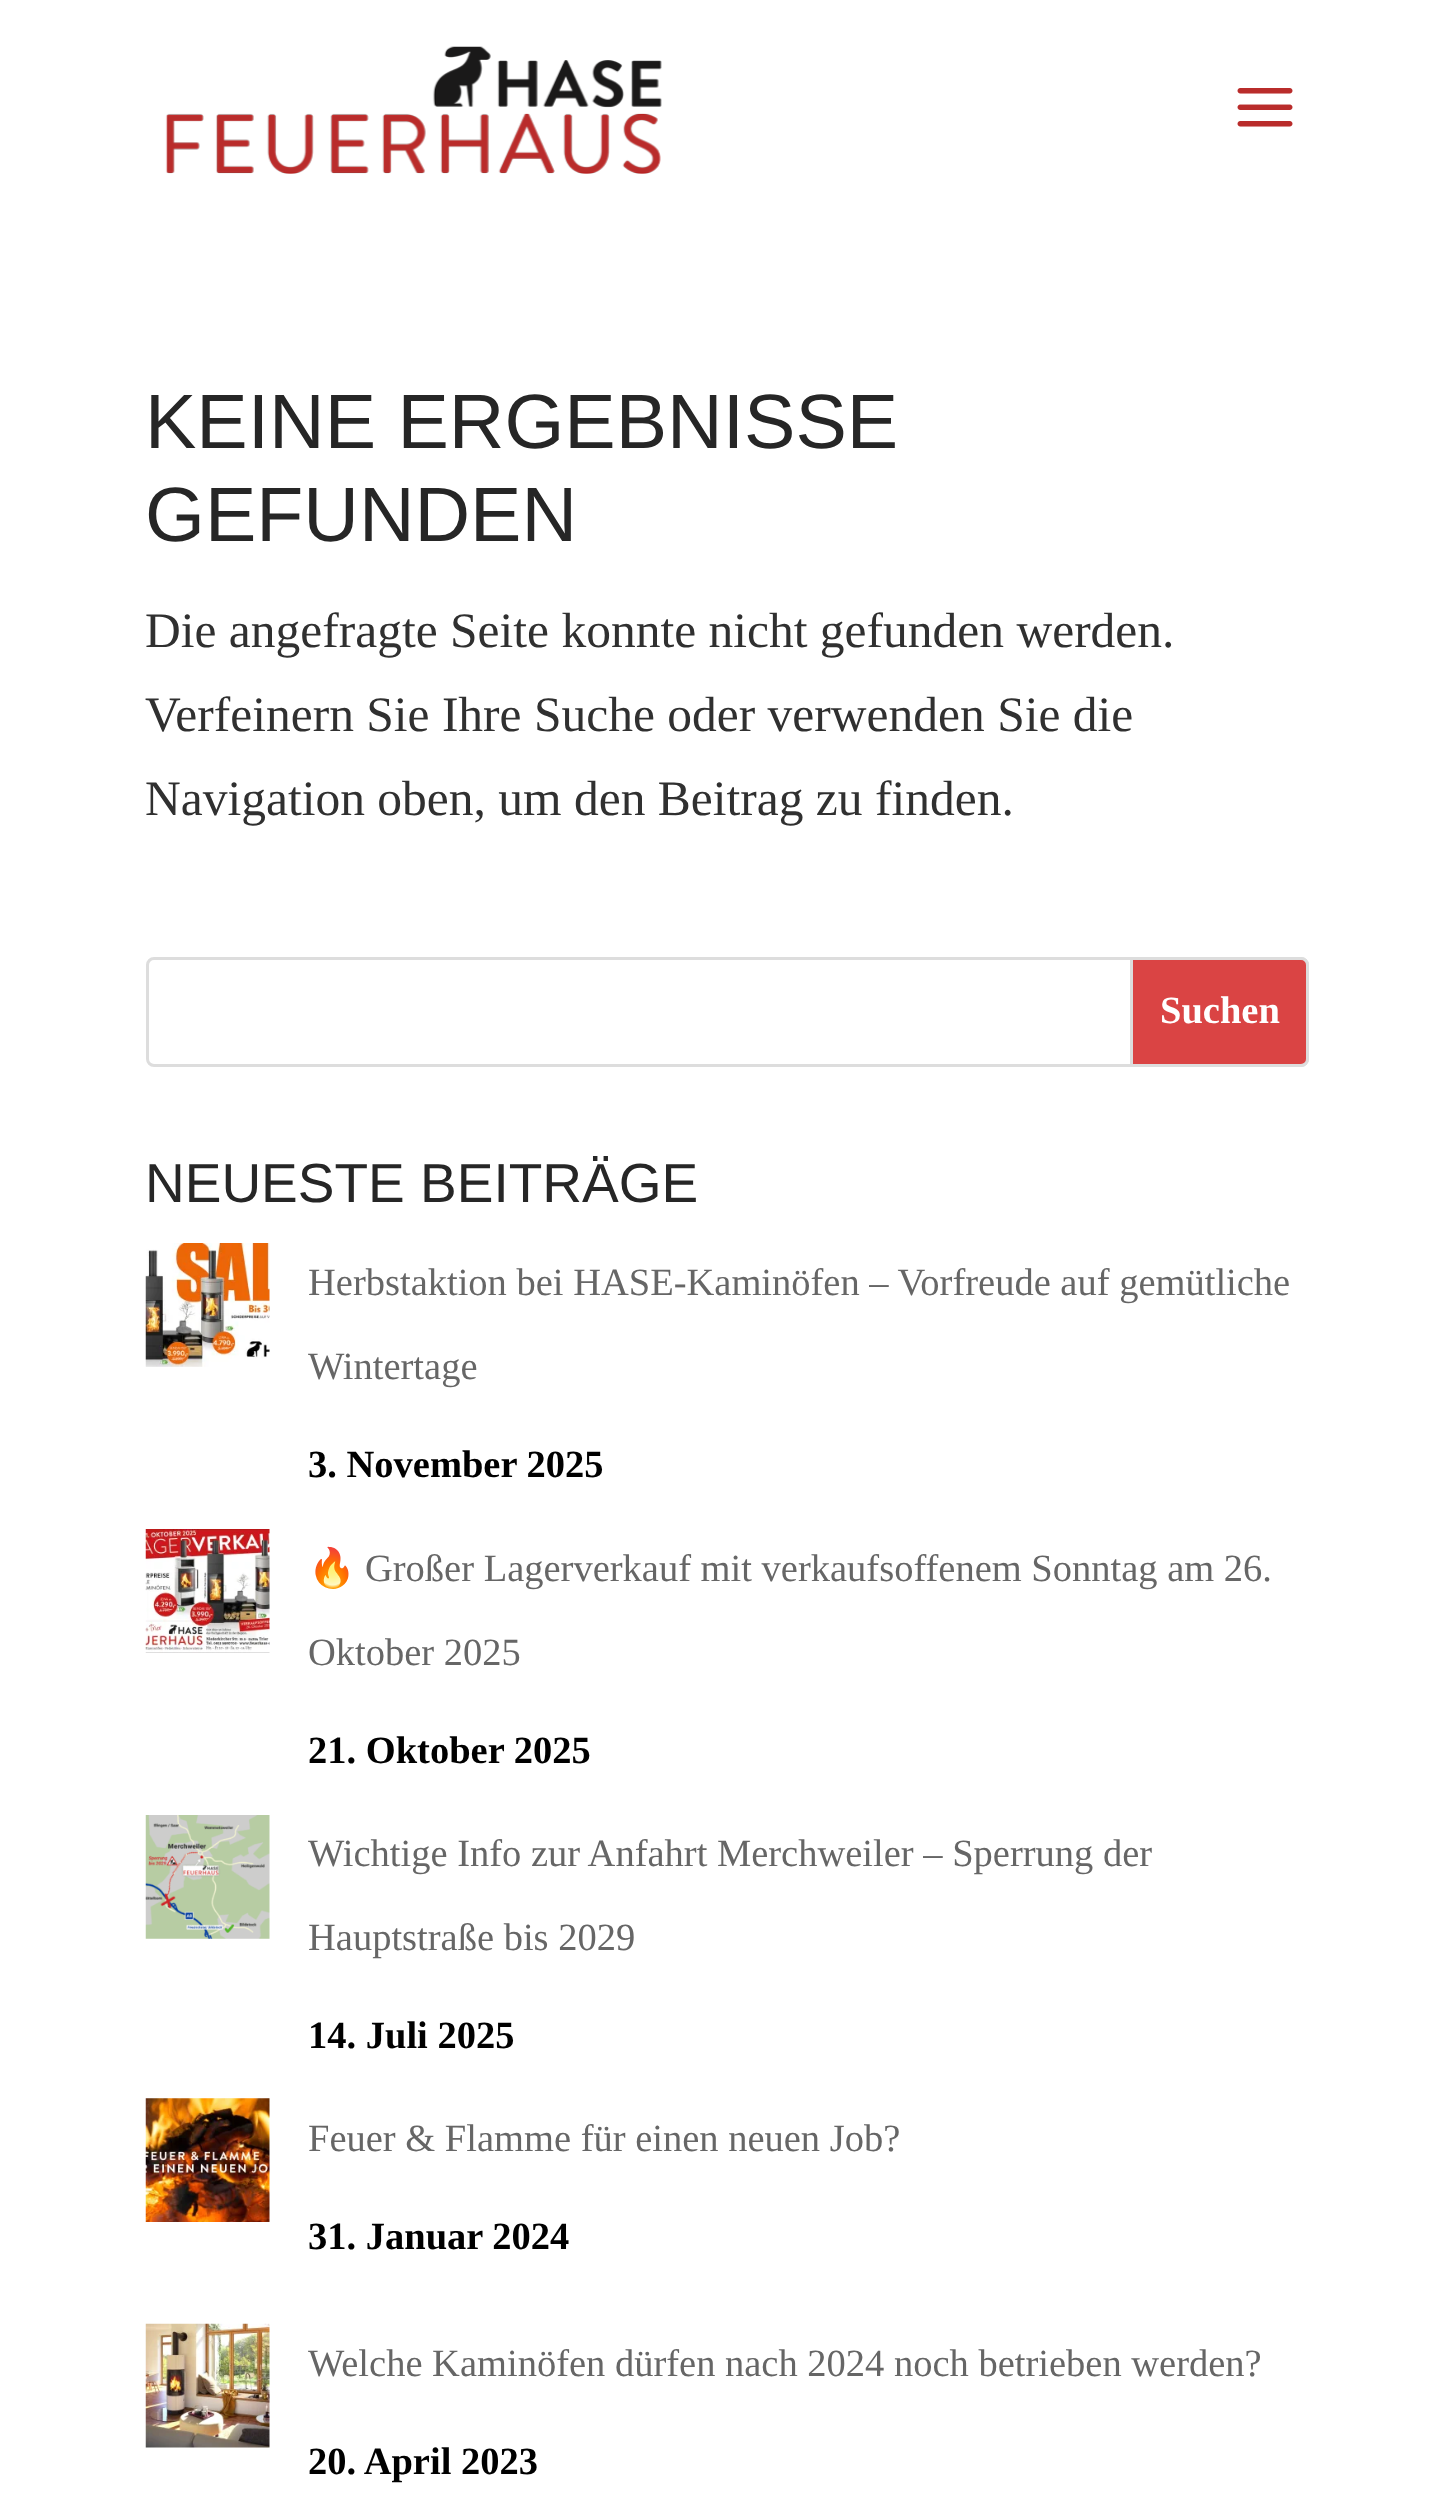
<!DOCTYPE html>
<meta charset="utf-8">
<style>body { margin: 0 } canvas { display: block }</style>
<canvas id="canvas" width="1454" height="2503"></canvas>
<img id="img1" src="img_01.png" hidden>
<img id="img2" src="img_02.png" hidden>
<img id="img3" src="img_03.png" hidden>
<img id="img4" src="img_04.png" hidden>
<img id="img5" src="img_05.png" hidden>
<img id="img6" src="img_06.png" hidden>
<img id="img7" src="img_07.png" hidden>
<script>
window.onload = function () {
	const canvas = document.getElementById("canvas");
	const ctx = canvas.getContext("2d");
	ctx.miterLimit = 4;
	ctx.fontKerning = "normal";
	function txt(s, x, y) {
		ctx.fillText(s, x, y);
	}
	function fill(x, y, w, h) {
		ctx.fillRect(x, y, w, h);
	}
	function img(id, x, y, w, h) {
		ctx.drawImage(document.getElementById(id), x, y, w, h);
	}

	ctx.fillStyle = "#FFFFFF";
	fill(0, 0, 1454, 2503);
	img("img1", 165, 46, 497, 128);
	img("img2", 1237, 88, 56, 39);
	ctx.beginPath();
	ctx.roundRect(147.5, 958.5, 1160, 107, 6.5);
	ctx.strokeStyle = "#DDDDDD";
	ctx.lineWidth = 3;
	ctx.stroke();
	ctx.fillStyle = "#DA4444";
	ctx.beginPath();
	ctx.roundRect(1131.5, 958.5, 176, 107, [0, 6.5, 6.5, 0]);
	ctx.fill();
	ctx.stroke();
	img("img3", 145, 1243, 125, 124);
	img("img4", 145, 1529, 125, 124);
	img("img5", 145, 1815, 125, 124);
	img("img6", 145, 2098, 125, 124);
	img("img7", 145, 2323, 125, 125);
	ctx.font = "77px Liberation Sans";
	ctx.fillStyle = "#262626";
	txt("KEINE ERGEBNISSE", 145, 448);
	txt("GEFUNDEN", 145, 541);
	ctx.font = "49.5px Liberation Serif";
	ctx.fillStyle = "#303030";
	txt("Die angefragte Seite konnte nicht gefunden werden.", 145, 647);
	txt("Verfeinern Sie Ihre Suche oder verwenden Sie die", 145, 731);
	txt("Navigation oben, um den Beitrag zu finden.", 145, 815);
	ctx.font = "bold 38.5px Liberation Serif";
	ctx.fillStyle = "#FFFFFF";
	txt("Suchen", 1160, 1023);
	ctx.font = "55px Liberation Sans";
	ctx.fillStyle = "#262626";
	txt("NEUESTE BEITRÄGE", 145, 1202);
	ctx.font = "38.5px Liberation Serif";
	ctx.fillStyle = "#666666";
	txt("Herbstaktion bei HASE-Kaminöfen – Vorfreude auf gemütliche", 308, 1295);
	txt("Wintertage", 308, 1379);
	ctx.font = "bold 38.5px Liberation Serif";
	ctx.fillStyle = "#000000";
	txt("3. November 2025", 308, 1477);
	ctx.font = "38.5px Noto Color Emoji";
	ctx.fillStyle = "#666666";
	txt("🔥", 308, 1581);
	ctx.font = "38.5px Liberation Serif";
	txt("Großer Lagerverkauf mit verkaufsoffenem Sonntag am 26.", 365, 1581);
	txt("Oktober 2025", 308, 1665);
	ctx.font = "bold 38.5px Liberation Serif";
	ctx.fillStyle = "#000000";
	txt("21. Oktober 2025", 308, 1763);
	ctx.font = "38.5px Liberation Serif";
	ctx.fillStyle = "#666666";
	txt("Wichtige Info zur Anfahrt Merchweiler – Sperrung der", 308, 1866);
	txt("Hauptstraße bis 2029", 308, 1950);
	ctx.font = "bold 38.5px Liberation Serif";
	ctx.fillStyle = "#000000";
	txt("14. Juli 2025", 308, 2048);
	ctx.font = "38.5px Liberation Serif";
	ctx.fillStyle = "#666666";
	txt("Feuer & Flamme für einen neuen Job?", 308, 2151);
	ctx.font = "bold 38.5px Liberation Serif";
	ctx.fillStyle = "#000000";
	txt("31. Januar 2024", 308, 2249);
	ctx.font = "38.5px Liberation Serif";
	ctx.fillStyle = "#666666";
	txt("Welche Kaminöfen dürfen nach 2024 noch betrieben werden?", 308, 2376);
	ctx.font = "bold 38.5px Liberation Serif";
	ctx.fillStyle = "#000000";
	txt("20. April 2023", 308, 2474);
};
</script>
